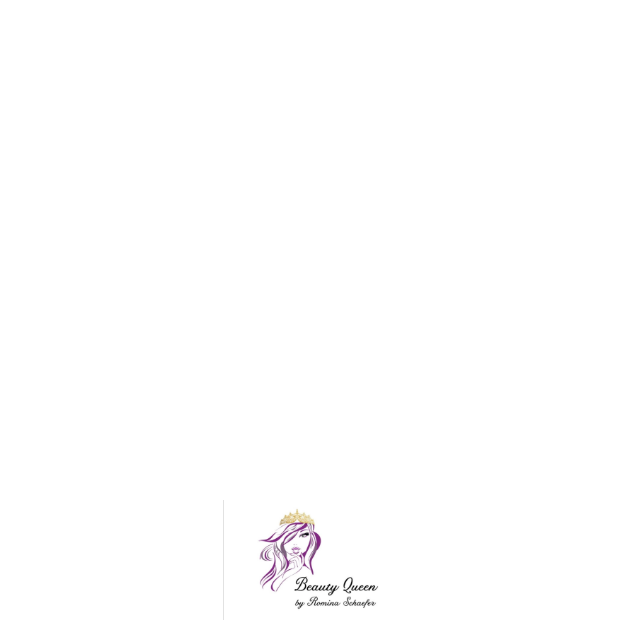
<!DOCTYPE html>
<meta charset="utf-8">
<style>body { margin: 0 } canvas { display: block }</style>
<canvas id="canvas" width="636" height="636"></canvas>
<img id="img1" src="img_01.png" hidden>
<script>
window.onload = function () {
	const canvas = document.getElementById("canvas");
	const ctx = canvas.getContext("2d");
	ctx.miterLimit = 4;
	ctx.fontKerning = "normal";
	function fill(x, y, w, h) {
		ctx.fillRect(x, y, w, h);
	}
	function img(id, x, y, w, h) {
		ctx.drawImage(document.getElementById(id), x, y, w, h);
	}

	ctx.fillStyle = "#FFFFFF";
	fill(0, 0, 636, 636);
	img("img1", 223, 500, 156, 120);
};
</script>
